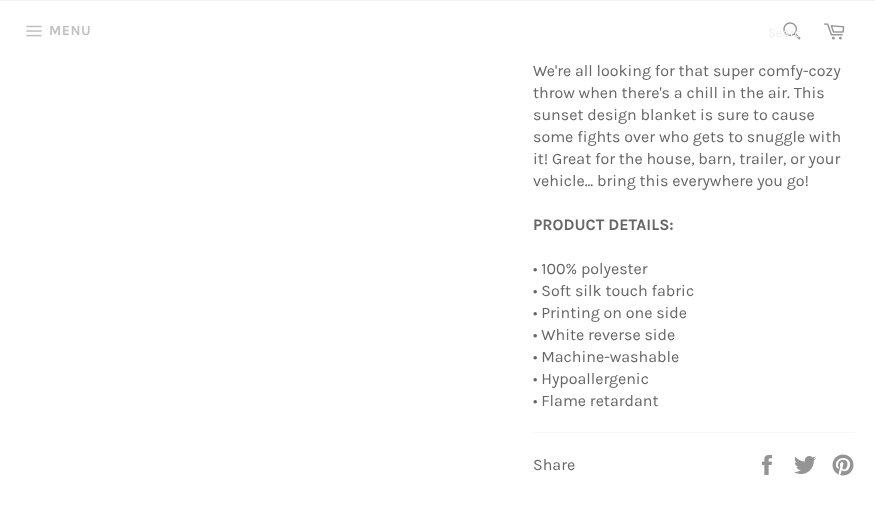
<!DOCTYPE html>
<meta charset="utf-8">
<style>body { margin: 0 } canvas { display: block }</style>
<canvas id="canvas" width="875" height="522"></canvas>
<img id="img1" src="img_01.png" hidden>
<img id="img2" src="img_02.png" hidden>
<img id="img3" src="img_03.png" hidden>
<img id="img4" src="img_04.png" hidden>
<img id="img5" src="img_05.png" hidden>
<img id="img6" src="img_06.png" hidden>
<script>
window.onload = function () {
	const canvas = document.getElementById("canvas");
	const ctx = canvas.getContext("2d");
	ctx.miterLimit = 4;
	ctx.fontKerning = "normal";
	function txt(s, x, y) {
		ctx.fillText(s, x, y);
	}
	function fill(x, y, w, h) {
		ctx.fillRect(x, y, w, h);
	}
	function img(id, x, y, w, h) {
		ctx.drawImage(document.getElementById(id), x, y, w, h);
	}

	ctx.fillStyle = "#FFFFFF";
	fill(0, 0, 875, 522);
	ctx.fillStyle = "#F2F2F2";
	fill(0, 0, 875, 1);
	img("img1", 26, 25, 16, 12);
	img("img2", 783, 22, 18, 18);
	img("img3", 823, 23, 22, 17);
	ctx.fillStyle = "#F7F7F7";
	fill(533, 432, 322, 1);
	img("img4", 762, 455, 10, 20);
	img("img5", 794, 456, 22, 18);
	img("img6", 832, 454, 22, 22);
	ctx.letterSpacing = "0.5px";
	ctx.font = "bold 14px Karla";
	ctx.fillStyle = "#C1C1C1";
	txt("MENU", 49, 35);
	ctx.letterSpacing = "0px";
	ctx.font = "13px Karla";
	ctx.fillStyle = "#EEEEEE";
	txt("Searc", 768, 37);
	ctx.font = "16px Karla";
	ctx.fillStyle = "#666666";
	txt("We're all looking for that super comfy-cozy", 533, 76);
	txt("throw when there's a chill in the air. This", 533, 98);
	txt("sunset design blanket is sure to cause", 533, 120);
	txt("some fights over who gets to snuggle with", 533, 142);
	txt("it! Great for the house, barn, trailer, or your", 533, 164);
	txt("vehicle... bring this everywhere you go!", 533, 186);
	ctx.font = "bold 16px Karla";
	txt("PRODUCT DETAILS:", 533, 230);
	ctx.font = "16px Karla";
	txt("• 100% polyester", 533, 274);
	txt("• Soft silk touch fabric", 533, 296);
	txt("• Printing on one side", 533, 318);
	txt("• White reverse side", 533, 340);
	txt("• Machine-washable", 533, 362);
	txt("• Hypoallergenic", 533, 384);
	txt("• Flame retardant", 533, 406);
	txt("Share", 533, 470);
};
</script>
